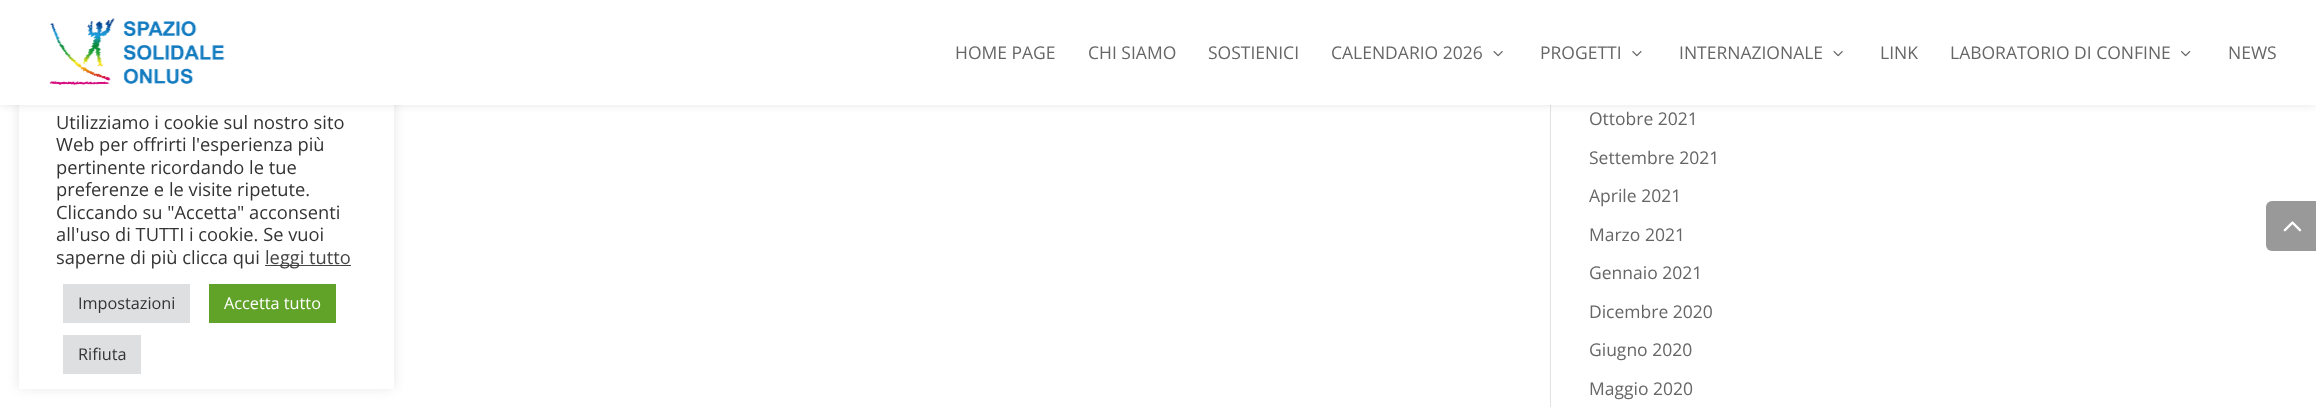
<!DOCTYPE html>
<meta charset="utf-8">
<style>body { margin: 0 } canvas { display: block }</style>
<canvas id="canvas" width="2316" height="407"></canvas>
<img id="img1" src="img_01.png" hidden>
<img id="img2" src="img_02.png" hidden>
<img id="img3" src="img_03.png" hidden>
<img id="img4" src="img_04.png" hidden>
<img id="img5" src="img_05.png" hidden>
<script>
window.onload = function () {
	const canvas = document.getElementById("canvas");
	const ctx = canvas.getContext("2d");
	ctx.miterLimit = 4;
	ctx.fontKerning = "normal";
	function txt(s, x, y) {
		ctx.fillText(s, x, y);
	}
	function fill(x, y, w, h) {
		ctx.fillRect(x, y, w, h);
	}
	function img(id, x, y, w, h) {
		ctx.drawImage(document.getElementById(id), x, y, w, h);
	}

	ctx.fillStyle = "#FFFFFF";
	fill(0, 0, 2316, 407);
	ctx.fillStyle = "rgba(172, 171, 171, 0.3)";
	ctx.filter = "blur(6px)";
	ctx.beginPath();
	ctx.rect(19, 30, 375, 358);
	ctx.fill();
	ctx.filter = "none";
	ctx.fillStyle = "#FFFFFF";
	fill(19, 105, 375, 284);
	ctx.fillStyle = "#444444";
	fill(265, 265, 86, 1);
	ctx.fillStyle = "#DEDFE0";
	fill(63, 284, 127, 39);
	ctx.fillStyle = "#61A229";
	fill(209, 284, 127, 39);
	ctx.fillStyle = "#DEDFE0";
	fill(63, 335, 78, 39);
	ctx.fillStyle = "#E2E2E2";
	fill(1550, 105, 1, 302);
	ctx.fillStyle = "rgba(0, 0, 0, 0.1)";
	ctx.filter = "blur(4.5px)";
	ctx.beginPath();
	ctx.rect(0, 0, 2316, 105);
	ctx.fill();
	ctx.filter = "none";
	ctx.fillStyle = "#FFFFFF";
	fill(0, 0, 2316, 105);
	img("img1", 49, 18, 176, 67);
	img("img2", 1493, 51, 10, 6);
	img("img3", 1632, 51, 10, 6);
	img("img2", 1833, 51, 10, 6);
	img("img4", 2181, 51, 10, 6);
	ctx.fillStyle = "#999999";
	ctx.beginPath();
	ctx.roundRect(2266, 201, 50, 50, [6, 0, 0, 6]);
	ctx.fill();
	img("img5", 2283, 221, 19, 11);
	ctx.font = "18.3px Open Sans";
	ctx.fillStyle = "#333333";
	txt("Utilizziamo i cookie sul nostro sito", 56, 129);
	txt("Web per offrirti l'esperienza più", 56, 151);
	txt("pertinente ricordando le tue", 56, 174);
	txt("preferenze e le visite ripetute.", 56, 196);
	txt("Cliccando su \"Accetta\" acconsenti", 56, 219);
	txt("all'uso di TUTTI i cookie. Se vuoi", 56, 241);
	txt("saperne di più clicca qui", 56, 264);
	ctx.fillStyle = "#444444";
	txt("leggi tutto", 265, 264);
	ctx.font = "16.25px Open Sans";
	ctx.fillStyle = "#333333";
	txt("Impostazioni", 78, 309);
	ctx.fillStyle = "#FFFFFF";
	txt("Accetta tutto", 224, 309);
	ctx.fillStyle = "#333333";
	txt("Rifiuta", 78, 360);
	ctx.font = "17.5px Open Sans";
	ctx.fillStyle = "#666666";
	txt("HOME PAGE", 955, 59);
	txt("CHI SIAMO", 1088, 59);
	txt("SOSTIENICI", 1208, 59);
	txt("CALENDARIO 2026", 1331, 59);
	txt("PROGETTI", 1540, 59);
	txt("INTERNAZIONALE", 1679, 59);
	txt("LINK", 1880, 59);
	txt("LABORATORIO DI CONFINE", 1950, 59);
	txt("NEWS", 2228, 59);
	txt("Ottobre 2021", 1589, 125);
	txt("Settembre 2021", 1589, 164);
	txt("Aprile 2021", 1589, 202);
	txt("Marzo 2021", 1589, 241);
	txt("Gennaio 2021", 1589, 279);
	txt("Dicembre 2020", 1589, 318);
	txt("Giugno 2020", 1589, 356);
	txt("Maggio 2020", 1589, 395);
};
</script>
